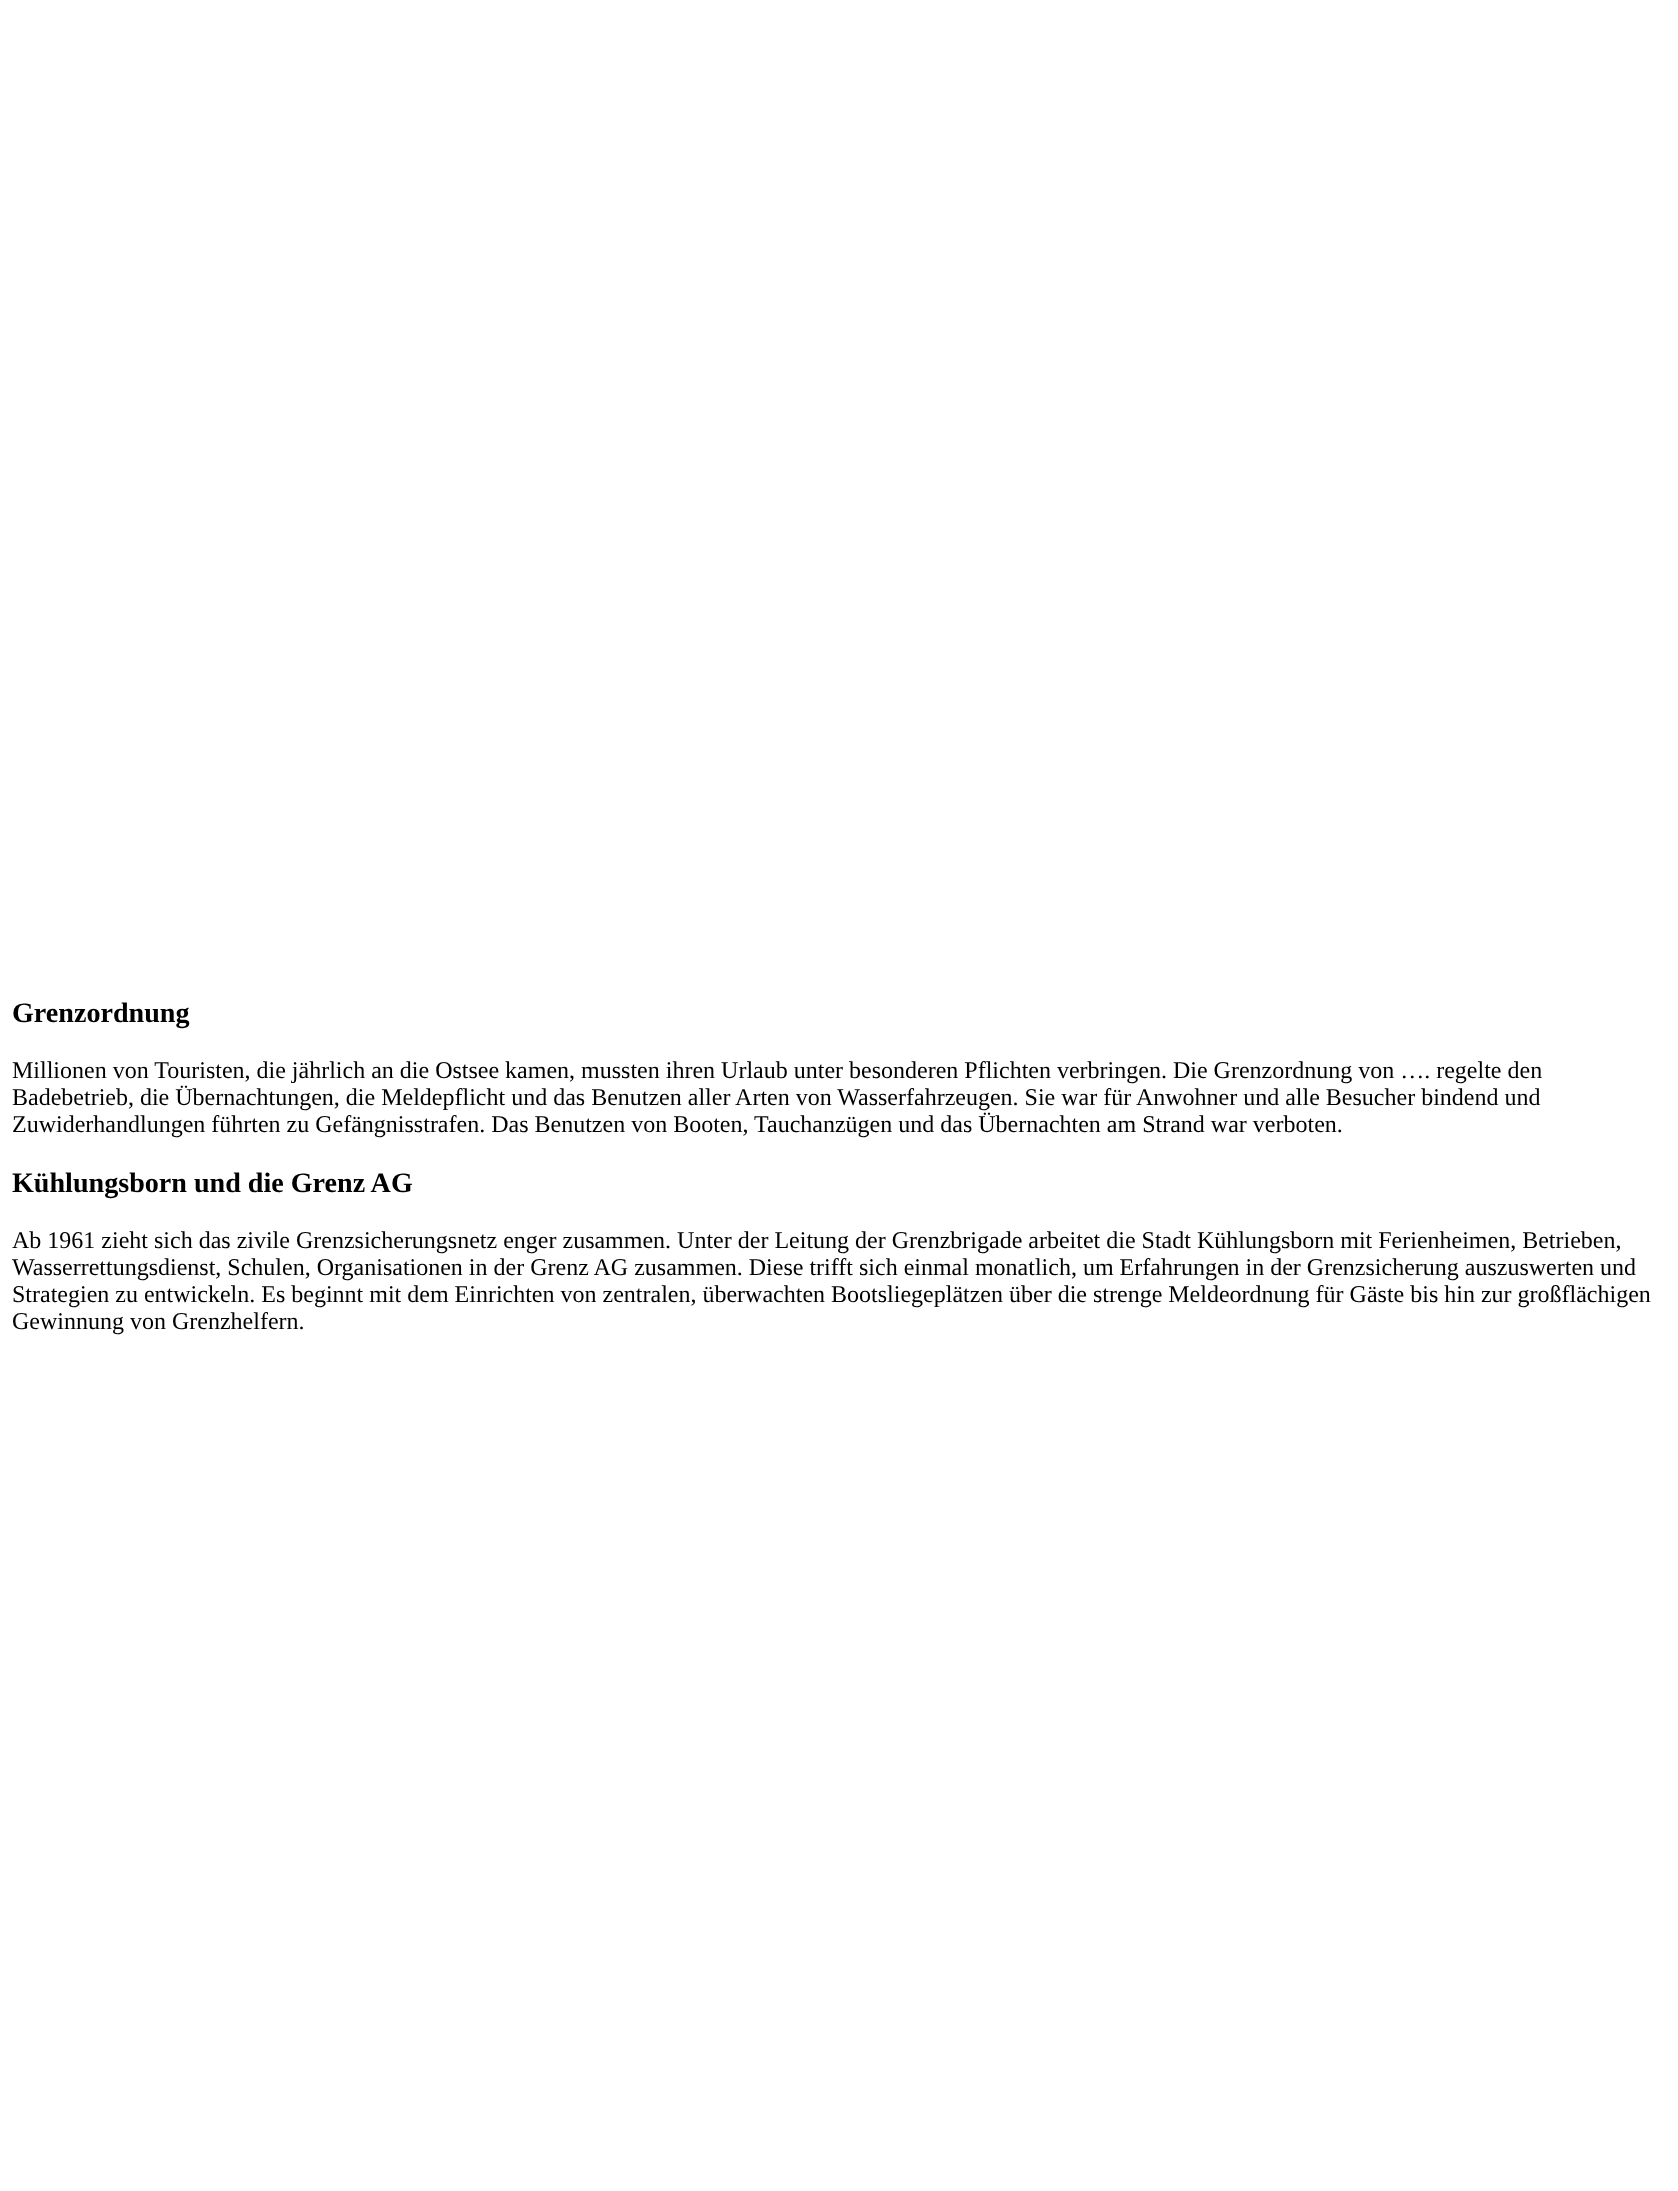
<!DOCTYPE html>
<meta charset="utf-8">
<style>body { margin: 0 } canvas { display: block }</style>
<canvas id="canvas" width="1678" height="2191"></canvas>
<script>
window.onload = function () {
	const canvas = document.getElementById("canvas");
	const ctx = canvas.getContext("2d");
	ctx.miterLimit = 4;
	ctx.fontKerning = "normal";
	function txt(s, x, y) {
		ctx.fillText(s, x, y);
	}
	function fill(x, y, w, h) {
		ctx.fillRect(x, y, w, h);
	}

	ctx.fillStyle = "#FFFFFF";
	fill(0, 0, 1678, 2191);
	ctx.font = "bold 28.1px Liberation Serif";
	ctx.fillStyle = "#000000";
	txt("Grenzordnung", 12, 1022);
	ctx.font = "24px Liberation Serif";
	txt("Millionen von Touristen, die jährlich an die Ostsee kamen, mussten ihren Urlaub unter besonderen Pflichten verbringen. Die Grenzordnung von …. regelte den", 12, 1078);
	txt("Badebetrieb, die Übernachtungen, die Meldepflicht und das Benutzen aller Arten von Wasserfahrzeugen. Sie war für Anwohner und alle Besucher bindend und", 12, 1105);
	txt("Zuwiderhandlungen führten zu Gefängnisstrafen. Das Benutzen von Booten, Tauchanzügen und das Übernachten am Strand war verboten.", 12, 1132);
	ctx.font = "bold 28.1px Liberation Serif";
	txt("Kühlungsborn und die Grenz AG", 12, 1192);
	ctx.font = "24px Liberation Serif";
	txt("Ab 1961 zieht sich das zivile Grenzsicherungsnetz enger zusammen. Unter der Leitung der Grenzbrigade arbeitet die Stadt Kühlungsborn mit Ferienheimen, Betrieben,", 12, 1248);
	txt("Wasserrettungsdienst, Schulen, Organisationen in der Grenz AG zusammen. Diese trifft sich einmal monatlich, um Erfahrungen in der Grenzsicherung auszuswerten und", 12, 1275);
	txt("Strategien zu entwickeln. Es beginnt mit dem Einrichten von zentralen, überwachten Bootsliegeplätzen über die strenge Meldeordnung für Gäste bis hin zur großflächigen", 12, 1302);
	txt("Gewinnung von Grenzhelfern.", 12, 1329);
};
</script>
